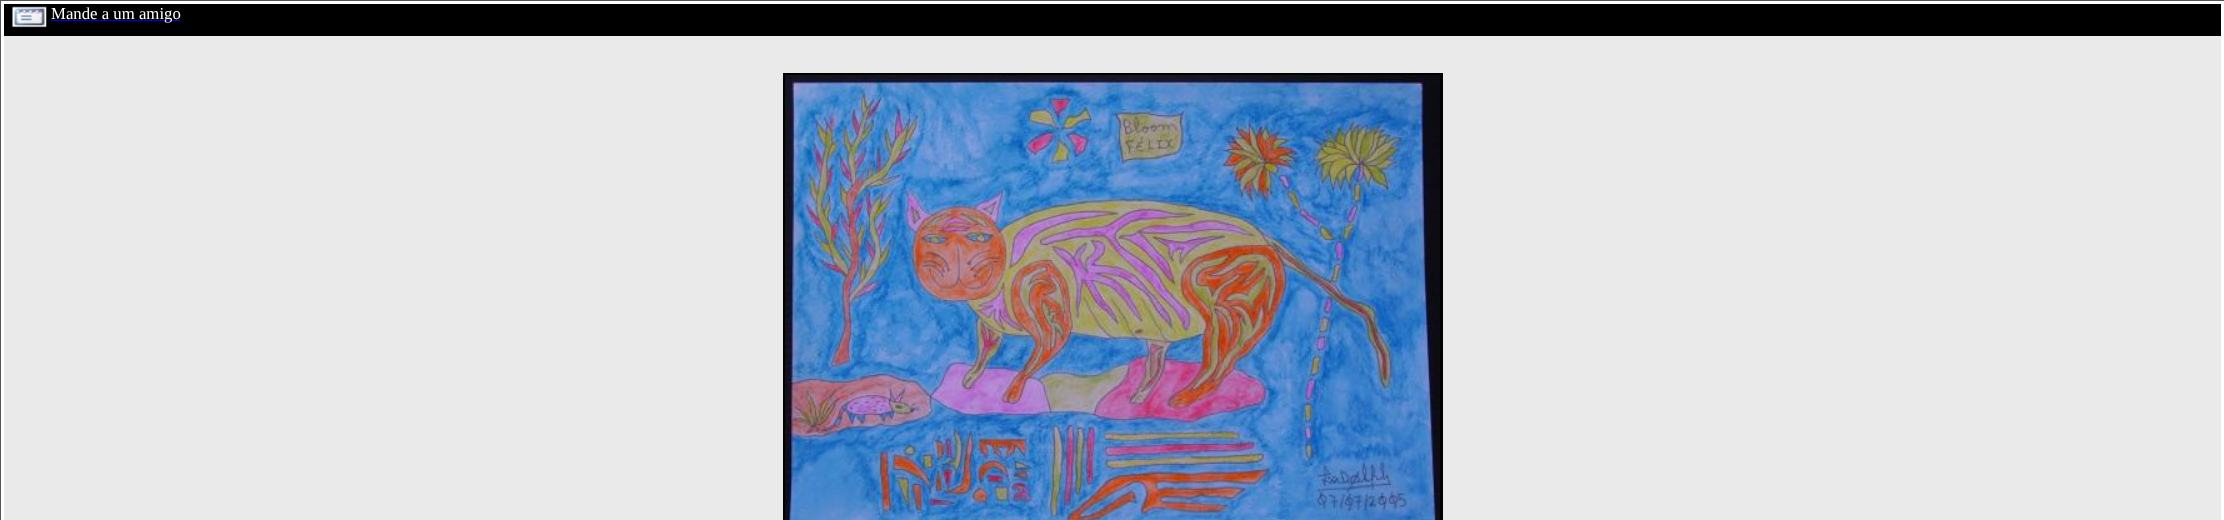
<!DOCTYPE html>
<meta charset="utf-8">
<style>body { margin: 0 } canvas { display: block }</style>
<canvas id="canvas" width="2224" height="520"></canvas>
<img id="img1" src="img_01.png" hidden>
<img id="img2" src="img_02.png" hidden>
<script>
window.onload = function () {
	const canvas = document.getElementById("canvas");
	const ctx = canvas.getContext("2d");
	ctx.miterLimit = 4;
	ctx.fontKerning = "normal";
	function txt(s, x, y) {
		ctx.fillText(s, x, y);
	}
	function fill(x, y, w, h) {
		ctx.fillRect(x, y, w, h);
	}
	function img(id, x, y, w, h) {
		ctx.drawImage(document.getElementById(id), x, y, w, h);
	}

	ctx.fillStyle = "#555555";
	fill(0, 0, 2224, 520);
	ctx.fillStyle = "#FFFFFF";
	fill(1, 1, 2223, 3);
	ctx.fillStyle = "#000000";
	fill(3, 35, 2221, 1);
	ctx.fillStyle = "#FFFFFF";
	fill(2221, 1, 3, 519);
	fill(1, 1, 3, 519);
	ctx.fillStyle = "#000000";
	fill(4, 4, 2217, 31);
	img("img1", 12, 6, 35, 22);
	ctx.fillStyle = "#0000EE";
	fill(51, 20, 129, 1);
	ctx.fillStyle = "#EAEAEA";
	fill(4, 36, 2217, 484);
	ctx.strokeStyle = "#000000";
	ctx.lineWidth = 3;
	ctx.strokeRect(784.5, 74.5, 657, 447);
	img("img2", 785, 75, 655, 445);
	ctx.font = "16.75px Liberation Serif";
	ctx.fillStyle = "#FFFFFF";
	txt("Mande a um amigo", 51, 19);
};
</script>
